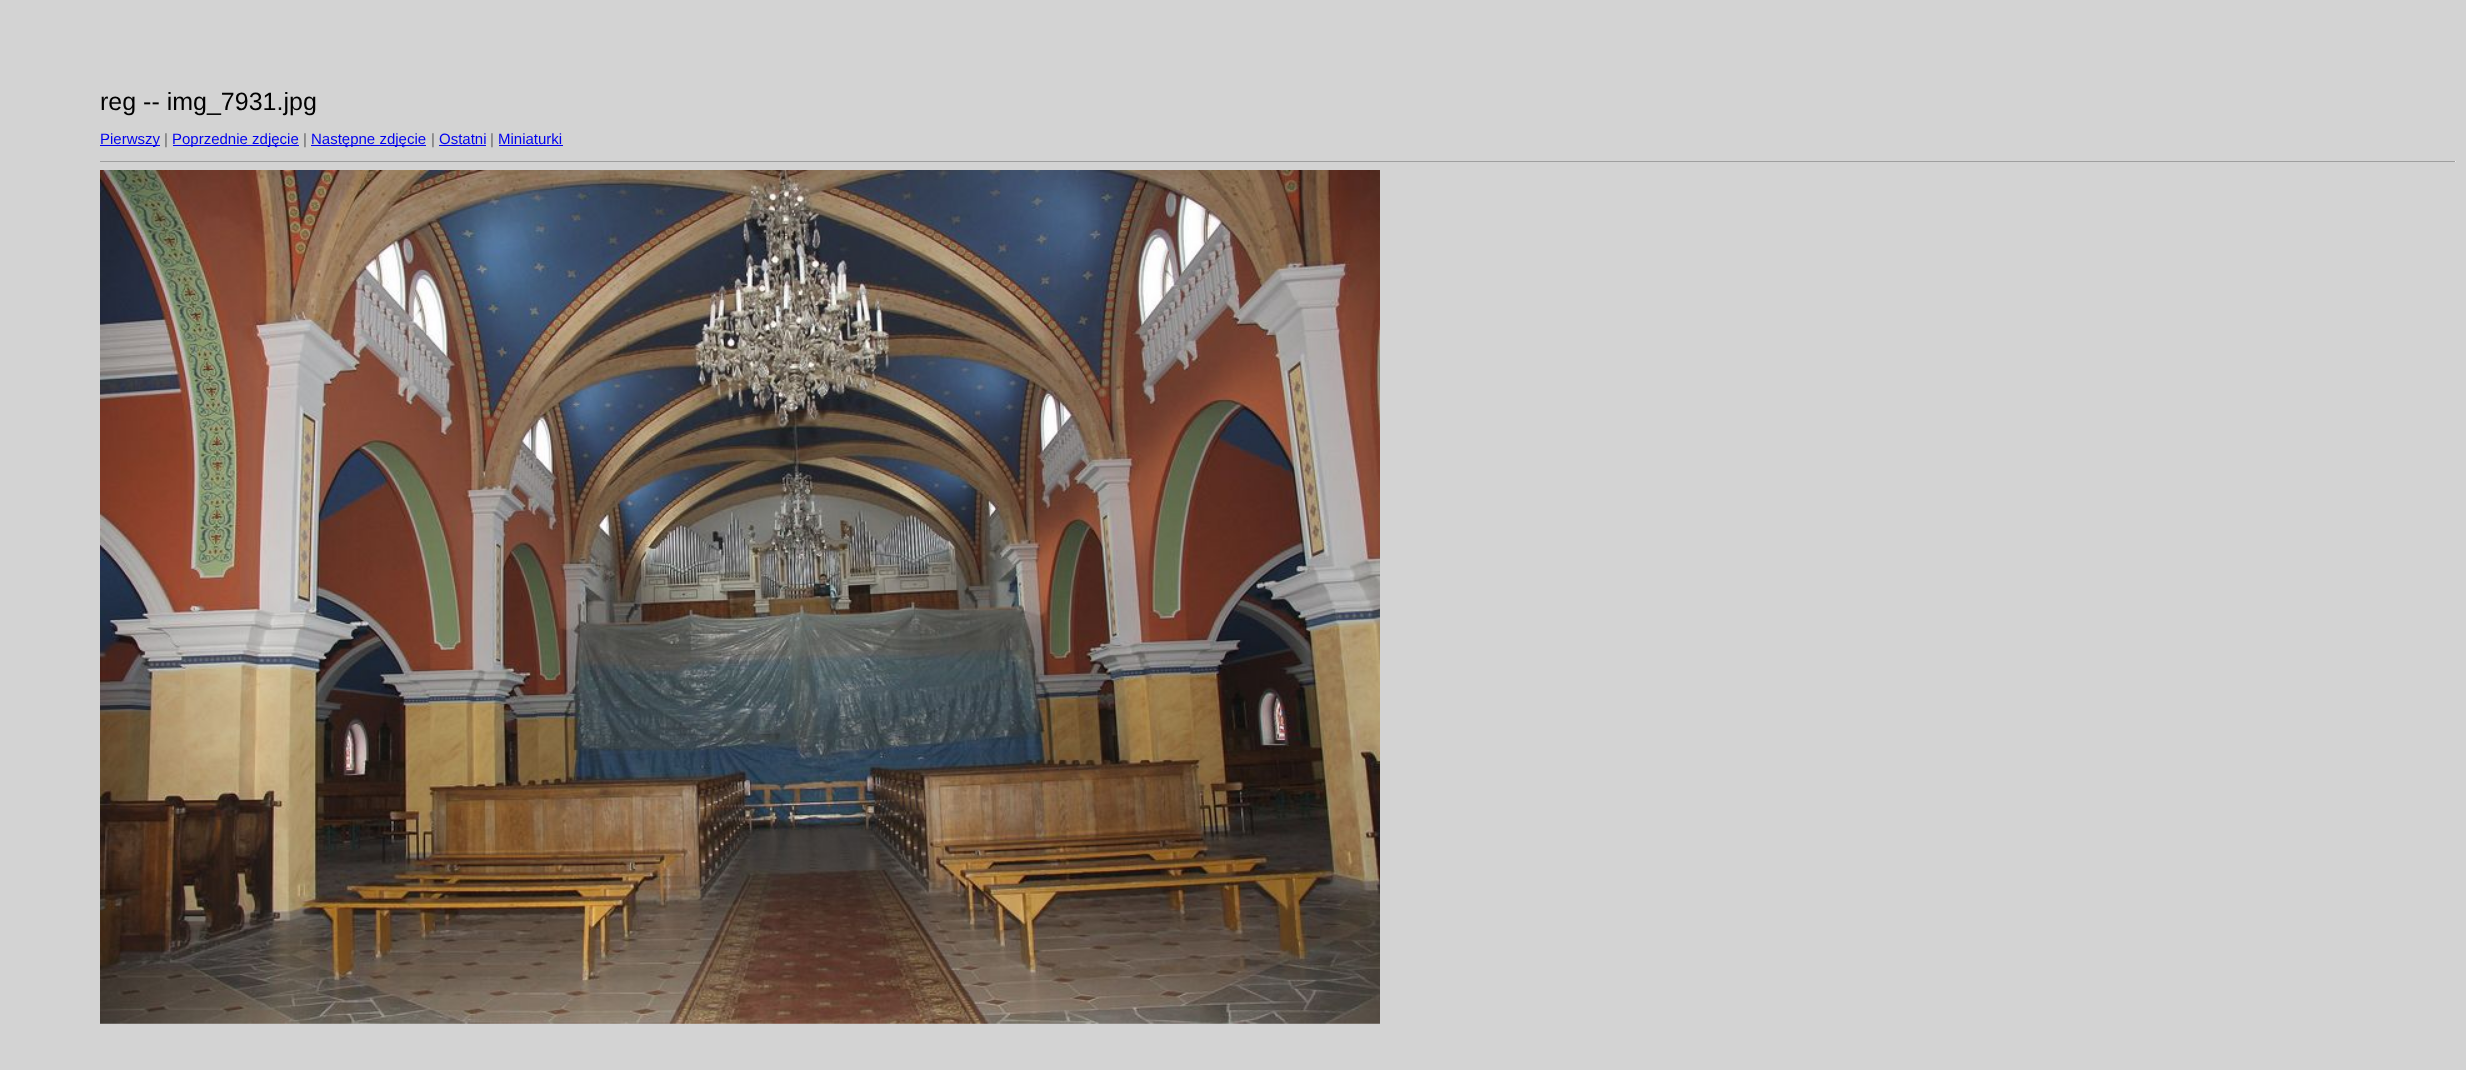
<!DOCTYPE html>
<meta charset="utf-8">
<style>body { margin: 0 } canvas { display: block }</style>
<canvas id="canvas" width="2466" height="1070"></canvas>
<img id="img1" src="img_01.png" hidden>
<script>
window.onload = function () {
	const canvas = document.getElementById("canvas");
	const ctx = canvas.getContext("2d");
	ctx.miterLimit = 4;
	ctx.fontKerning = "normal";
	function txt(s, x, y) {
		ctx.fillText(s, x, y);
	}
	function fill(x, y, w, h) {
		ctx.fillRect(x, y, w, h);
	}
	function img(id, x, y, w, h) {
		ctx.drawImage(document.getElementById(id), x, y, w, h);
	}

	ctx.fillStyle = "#D3D3D3";
	fill(0, 0, 2466, 1070);
	ctx.fillStyle = "#0000EE";
	fill(100, 145, 60, 1);
	fill(173, 145, 126, 1);
	fill(311, 145, 115, 1);
	fill(439, 145, 47, 1);
	fill(499, 145, 64, 1);
	ctx.fillStyle = "#9F9F9F";
	fill(100, 161, 2356, 1);
	ctx.fillStyle = "#EEEEEE";
	fill(2455, 161, 1, 1);
	img("img1", 100, 170, 1280, 854);
	ctx.font = "25px Liberation Sans";
	ctx.fillStyle = "#000000";
	txt("reg -- img_7931.jpg", 100, 110);
	ctx.font = "15px Liberation Sans";
	ctx.fillStyle = "#0000EE";
	txt("Pierwszy", 100, 144);
	ctx.fillStyle = "#666666";
	txt("|", 164, 144);
	ctx.fillStyle = "#0000EE";
	txt("Poprzednie zdjęcie", 172, 144);
	ctx.fillStyle = "#666666";
	txt("|", 303, 144);
	ctx.fillStyle = "#0000EE";
	txt("Następne zdjęcie", 311, 144);
	ctx.fillStyle = "#666666";
	txt("|", 431, 144);
	ctx.fillStyle = "#0000EE";
	txt("Ostatni", 439, 144);
	ctx.fillStyle = "#666666";
	txt("|", 490, 144);
	ctx.fillStyle = "#0000EE";
	txt("Miniaturki", 498, 144);
};
</script>
